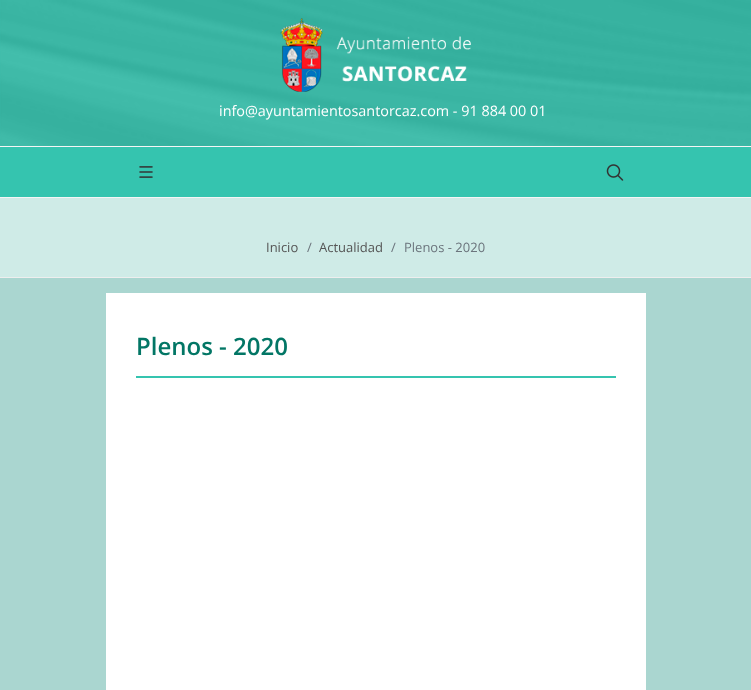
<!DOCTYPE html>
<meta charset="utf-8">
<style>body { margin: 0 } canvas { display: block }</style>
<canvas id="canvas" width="751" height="690"></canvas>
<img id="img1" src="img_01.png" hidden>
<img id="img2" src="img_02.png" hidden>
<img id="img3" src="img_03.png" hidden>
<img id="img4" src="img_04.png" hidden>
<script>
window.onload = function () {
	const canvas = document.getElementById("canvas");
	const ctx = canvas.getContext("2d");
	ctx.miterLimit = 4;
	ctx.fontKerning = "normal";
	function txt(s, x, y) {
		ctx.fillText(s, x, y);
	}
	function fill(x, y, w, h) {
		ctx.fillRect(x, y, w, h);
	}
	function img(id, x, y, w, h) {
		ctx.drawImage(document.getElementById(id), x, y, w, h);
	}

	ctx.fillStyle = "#35C4AF";
	fill(0, 0, 751, 690);
	img("img1", 0, 0, 751, 146);
	ctx.fillStyle = "#F5F5F5";
	fill(0, 197, 751, 1);
	img("img2", 280, 18, 191, 74);
	fill(0, 146, 751, 1);
	img("img3", 139, 166, 14, 12);
	img("img4", 606, 164, 18, 17);
	ctx.fillStyle = "#CFEBE7";
	fill(0, 198, 751, 79);
	ctx.fillStyle = "#EEEEEE";
	fill(0, 277, 751, 1);
	ctx.fillStyle = "#AAD6D0";
	fill(0, 278, 751, 412);
	ctx.fillStyle = "#FFFFFF";
	fill(106, 293, 540, 397);
	ctx.fillStyle = "#35C4AF";
	fill(136, 376, 480, 2);
	ctx.font = "14.4px Open Sans";
	ctx.fillStyle = "#FFFFFF";
	txt("info@ayuntamientosantorcaz.com - 91 884 00 01", 219, 116);
	ctx.font = "13px Open Sans";
	ctx.fillStyle = "#555555";
	txt("Inicio", 266, 252);
	ctx.fillStyle = "#6C757D";
	txt("/", 307, 252);
	ctx.fillStyle = "#555555";
	txt("Actualidad", 319, 252);
	ctx.fillStyle = "#6C757D";
	txt("/", 391, 252);
	txt("Plenos - 2020", 404, 252);
	ctx.font = "600 24px Open Sans";
	ctx.fillStyle = "#027665";
	txt("Plenos - 2020", 136, 355);
};
</script>
